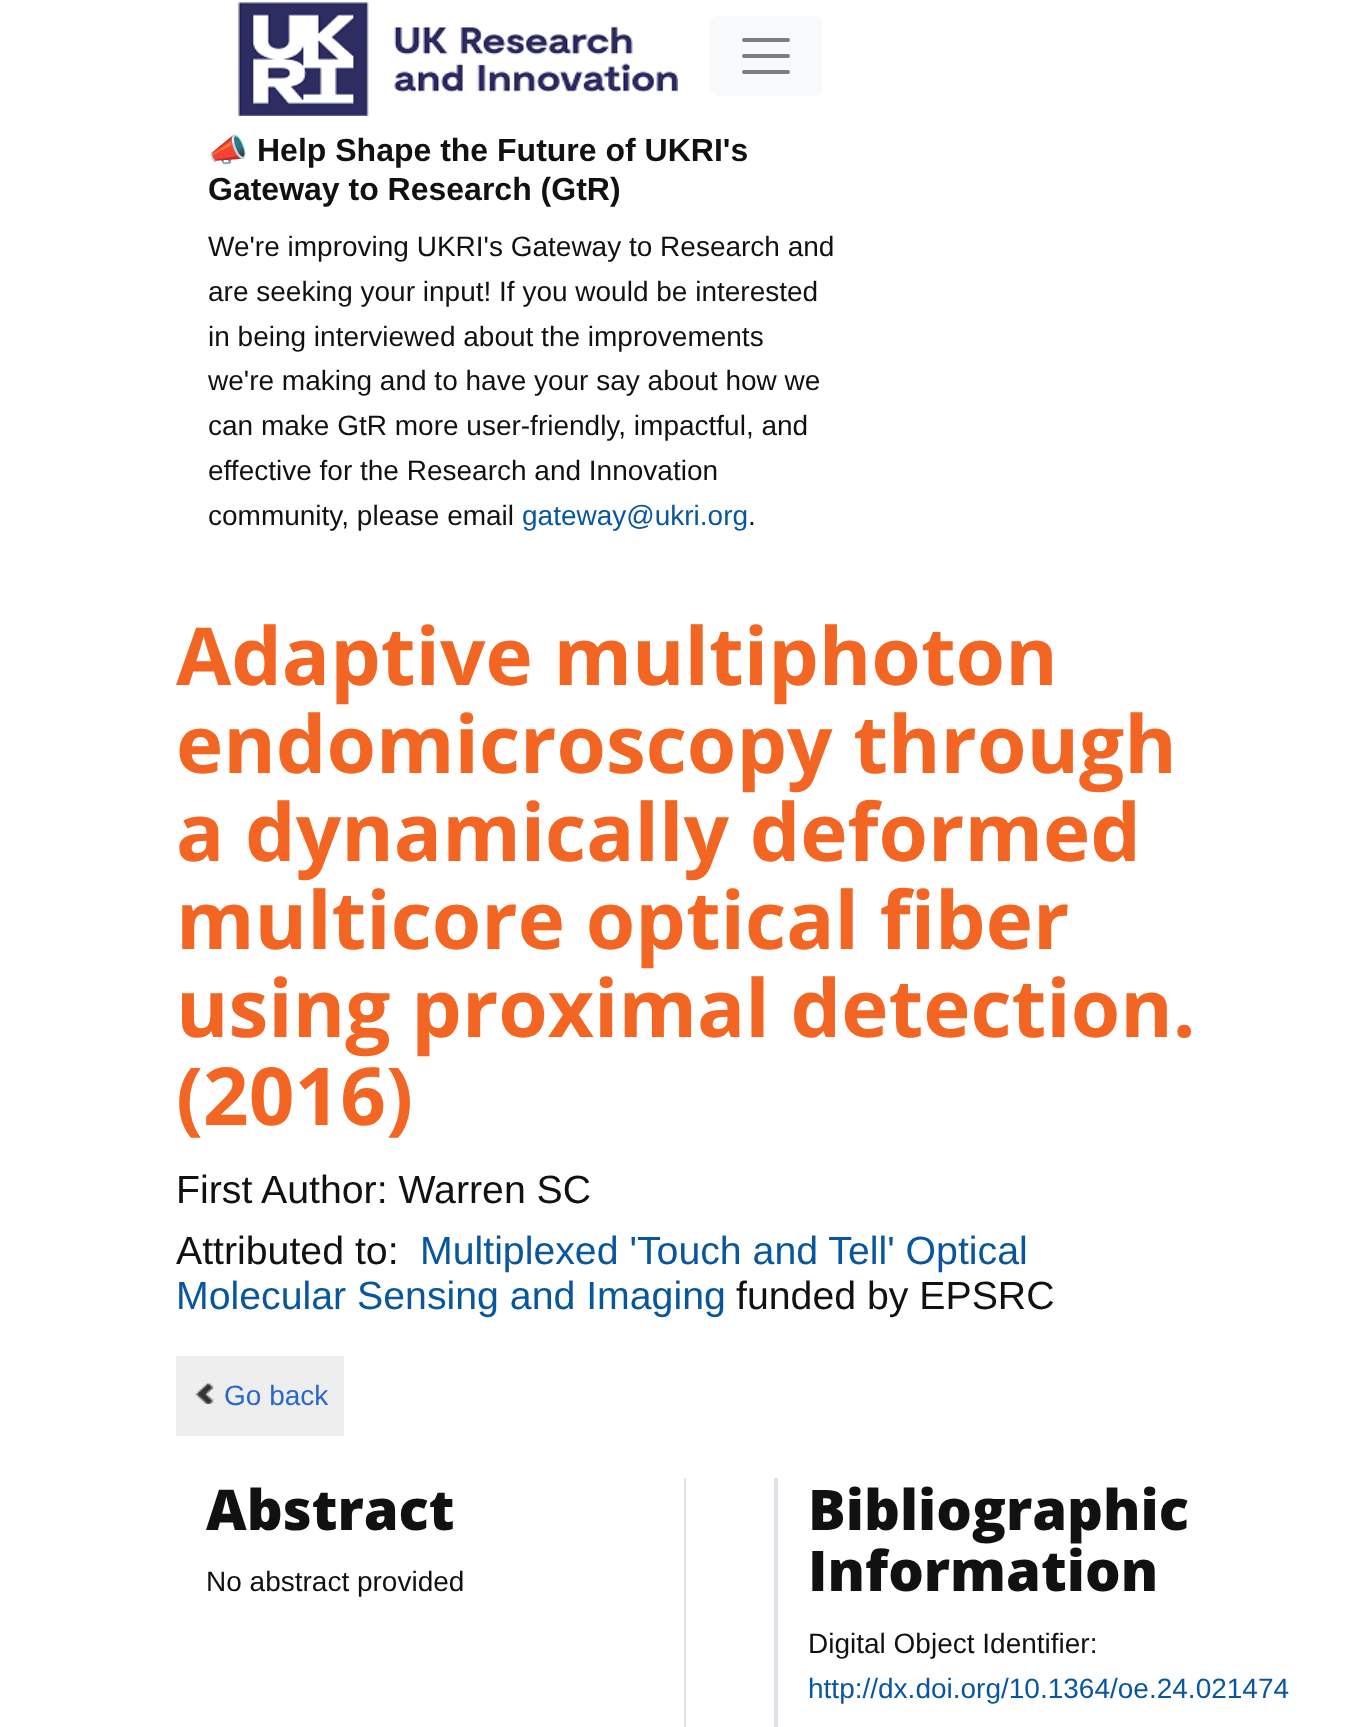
<!DOCTYPE html>
<meta charset="utf-8">
<style>body { margin: 0 } canvas { display: block }</style>
<canvas id="canvas" width="1372" height="1727"></canvas>
<img id="img1" src="img_01.png" hidden>
<img id="img2" src="img_02.png" hidden>
<script>
window.onload = function () {
	const canvas = document.getElementById("canvas");
	const ctx = canvas.getContext("2d");
	ctx.miterLimit = 4;
	ctx.fontKerning = "normal";
	function txt(s, x, y) {
		ctx.fillText(s, x, y);
	}
	function fill(x, y, w, h) {
		ctx.fillRect(x, y, w, h);
	}
	function round(x, y, w, h, r) {
		ctx.beginPath();
		ctx.roundRect(x, y, w, h, r);
		ctx.fill();
	}
	function img(id, x, y, w, h) {
		ctx.drawImage(document.getElementById(id), x, y, w, h);
	}

	ctx.fillStyle = "#FFFFFF";
	fill(0, 0, 1372, 1727);
	img("img1", 238, 2, 440, 114);
	ctx.fillStyle = "#F8F9FA";
	round(710, 16, 112, 80, 8);
	ctx.beginPath();
	ctx.moveTo(744, 40);
	ctx.lineTo(788, 40);
	ctx.moveTo(744, 56);
	ctx.lineTo(788, 56);
	ctx.moveTo(744, 72);
	ctx.lineTo(788, 72);
	ctx.strokeStyle = "#7C7D7D";
	ctx.lineWidth = 4;
	ctx.lineCap = "round";
	ctx.stroke();
	ctx.fillStyle = "#EEEEEE";
	fill(176, 1356, 168, 80);
	img("img2", 195, 1383, 19, 21);
	ctx.fillStyle = "#DEE2E6";
	fill(684, 1478, 2, 249);
	fill(774, 1478, 4, 249);
	ctx.font = "bold 32px Noto Color Emoji";
	ctx.fillStyle = "#111111";
	txt("📣", 208, 161);
	ctx.font = "bold 32px Liberation Sans";
	txt("Help Shape the Future of UKRI's", 257, 161);
	txt("Gateway to Research (GtR)", 208, 200);
	ctx.font = "28px Liberation Sans";
	txt("We're improving UKRI's Gateway to Research and", 208, 256);
	txt("are seeking your input! If you would be interested", 208, 301);
	txt("in being interviewed about the improvements", 208, 346);
	txt("we're making and to have your say about how we", 208, 390);
	txt("can make GtR more user-friendly, impactful, and", 208, 435);
	txt("effective for the Research and Innovation", 208, 480);
	txt("community, please email", 208, 525);
	ctx.fillStyle = "#07569E";
	txt("gateway@ukri.org", 522, 525);
	ctx.fillStyle = "#111111";
	txt(".", 748, 525);
	ctx.font = "bold 80px Open Sans";
	ctx.fillStyle = "#F26522";
	txt("Adaptive multiphoton", 176, 685);
	txt("endomicroscopy through", 176, 773);
	txt("a dynamically deformed", 176, 861);
	txt("multicore optical fiber", 176, 949);
	txt("using proximal detection.", 176, 1037);
	txt("(2016)", 176, 1125);
	ctx.font = "39.25px Liberation Sans";
	ctx.fillStyle = "#111111";
	txt("First Author: Warren SC", 176, 1203);
	txt("Attributed to:", 176, 1264);
	ctx.fillStyle = "#07569E";
	txt("Multiplexed 'Touch and Tell' Optical", 420, 1264);
	txt("Molecular Sensing and Imaging", 176, 1309);
	ctx.fillStyle = "#111111";
	txt("funded by EPSRC", 736, 1309);
	ctx.font = "28px Liberation Sans";
	ctx.fillStyle = "#2967CD";
	txt("Go back", 224, 1405);
	ctx.font = "800 56px Open Sans";
	ctx.fillStyle = "#111111";
	txt("Abstract", 206, 1530);
	ctx.font = "28px Liberation Sans";
	txt("No abstract provided", 206, 1591);
	ctx.font = "800 56px Open Sans";
	txt("Bibliographic", 808, 1530);
	txt("Information", 808, 1591);
	ctx.font = "28px Liberation Sans";
	txt("Digital Object Identifier:", 808, 1653);
	ctx.fillStyle = "#07569E";
	txt("http://dx.doi.org/10.1364/oe.24.021474", 808, 1698);
};
</script>
